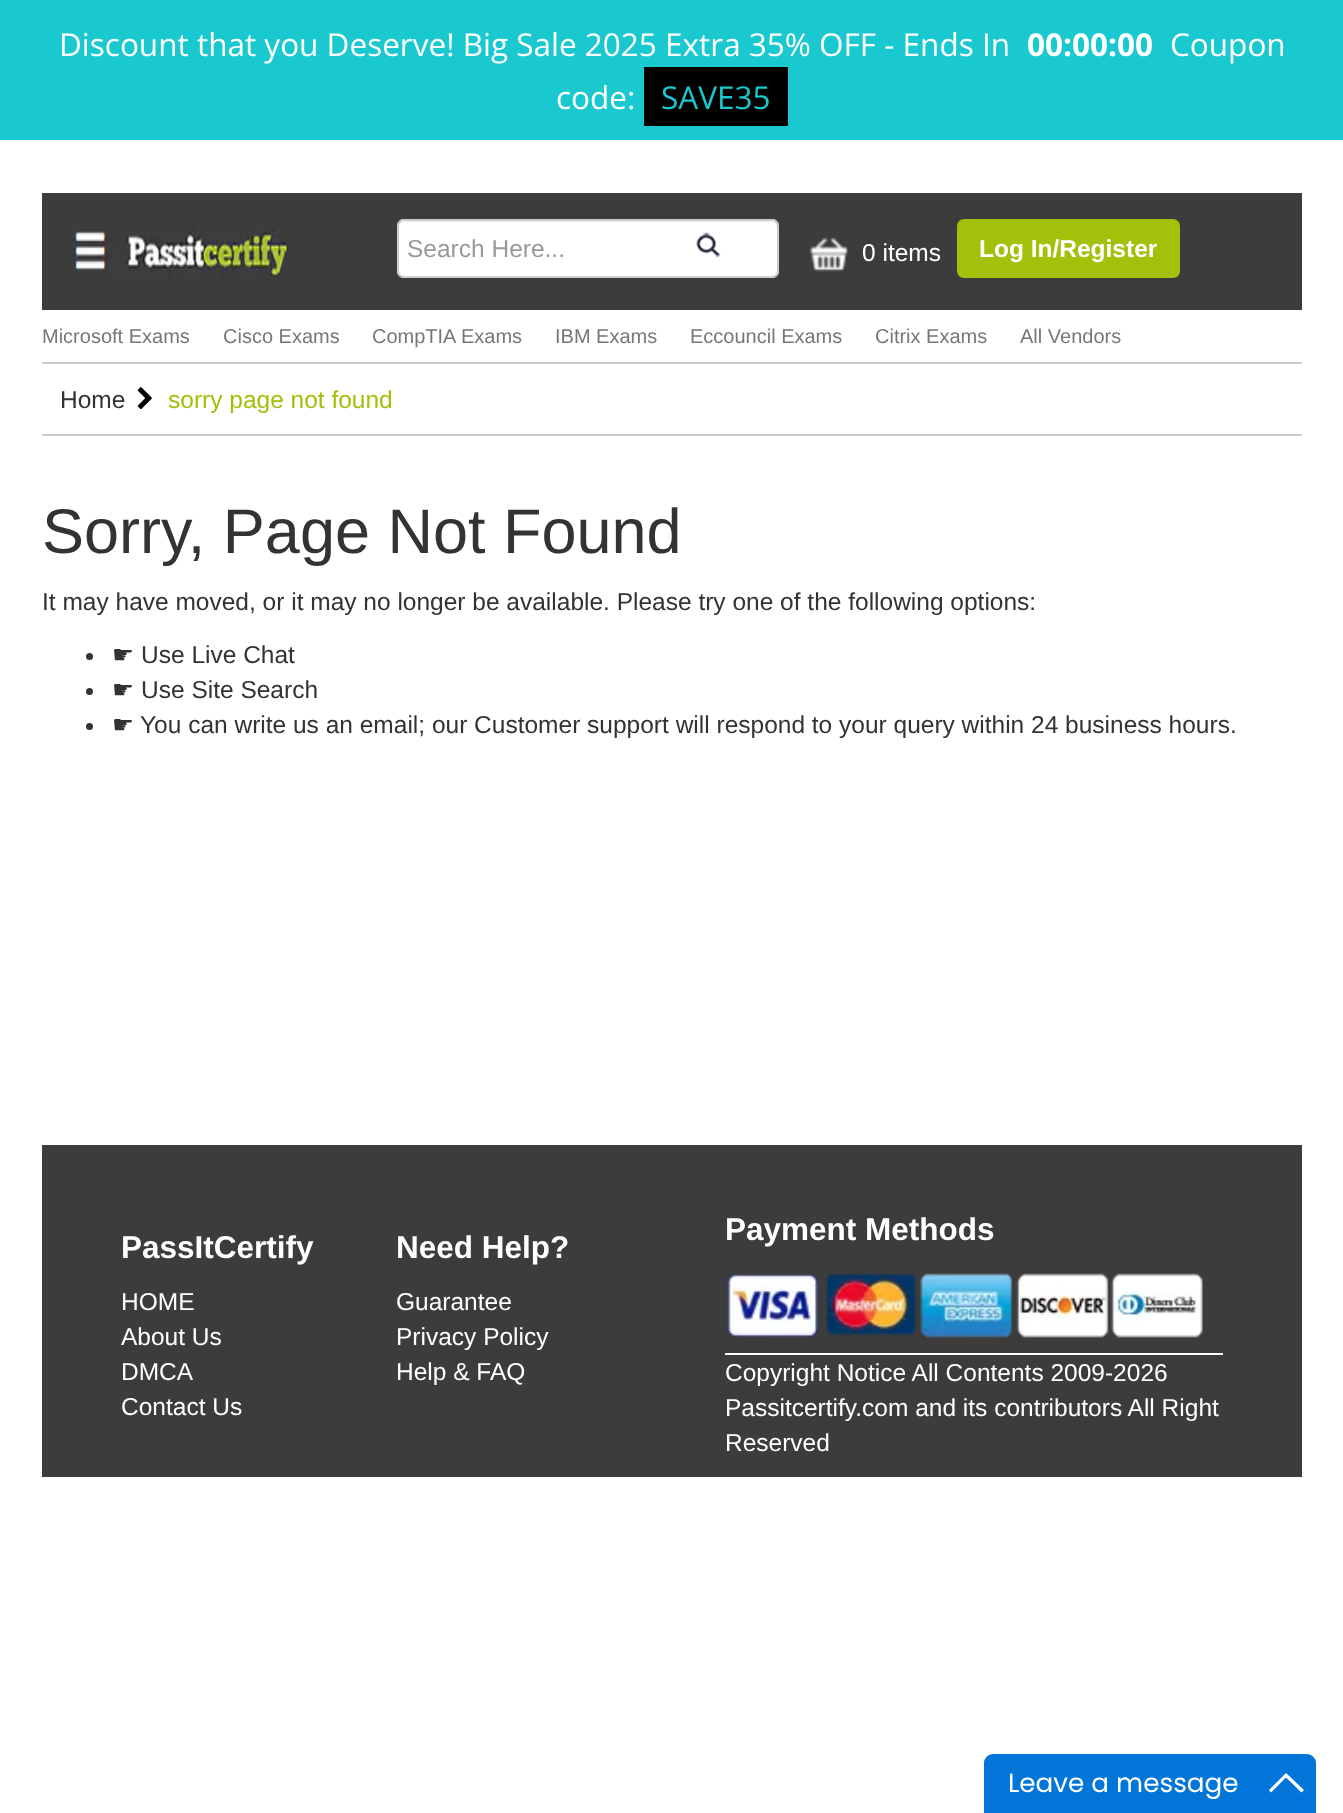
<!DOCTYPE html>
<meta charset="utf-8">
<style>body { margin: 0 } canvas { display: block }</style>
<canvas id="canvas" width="1343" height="1813"></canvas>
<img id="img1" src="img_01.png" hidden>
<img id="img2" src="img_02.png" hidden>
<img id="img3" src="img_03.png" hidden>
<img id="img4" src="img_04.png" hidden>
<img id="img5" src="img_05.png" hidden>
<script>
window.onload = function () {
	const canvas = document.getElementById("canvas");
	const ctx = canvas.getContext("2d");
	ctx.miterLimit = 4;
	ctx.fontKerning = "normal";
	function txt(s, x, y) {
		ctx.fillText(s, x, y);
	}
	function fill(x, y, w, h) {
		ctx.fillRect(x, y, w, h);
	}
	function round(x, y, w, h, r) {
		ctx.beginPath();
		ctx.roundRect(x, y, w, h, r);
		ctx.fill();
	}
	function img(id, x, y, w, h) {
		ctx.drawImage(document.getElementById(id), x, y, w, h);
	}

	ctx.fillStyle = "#FFFFFF";
	fill(0, 0, 1343, 1813);
	ctx.fillStyle = "#1AC8CF";
	fill(0, 0, 1343, 140);
	ctx.fillStyle = "#000000";
	fill(644, 67, 144, 59);
	ctx.fillStyle = "#3C3C3C";
	fill(42, 193, 1260, 117);
	img("img1", 69, 229, 224, 50);
	ctx.fillStyle = "#FFFFFF";
	round(397, 219, 382, 59, 7);
	ctx.fillStyle = "#ECECEC";
	ctx.beginPath();
	ctx.moveTo(404, 222);
	ctx.lineTo(772, 222);
	ctx.bezierCurveTo(775, 222, 777, 225, 777, 228);
	ctx.lineTo(777, 226);
	ctx.bezierCurveTo(777, 223, 775, 221, 772, 221);
	ctx.lineTo(404, 221);
	ctx.bezierCurveTo(401, 221, 399, 223, 399, 226);
	ctx.lineTo(399, 228);
	ctx.bezierCurveTo(399, 225, 401, 222, 404, 222);
	ctx.closePath();
	ctx.fill();
	ctx.beginPath();
	ctx.roundRect(398, 220, 380, 57, 6);
	ctx.strokeStyle = "#CCCCCC";
	ctx.lineWidth = 2;
	ctx.stroke();
	img("img2", 696, 232, 25, 26);
	img("img3", 809, 237, 39, 35);
	ctx.fillStyle = "#A4C00A";
	ctx.beginPath();
	ctx.roundRect(958, 220, 221, 57, 6);
	ctx.fill();
	ctx.strokeStyle = "#A4C00A";
	ctx.stroke();
	ctx.fillStyle = "#CCCCCC";
	fill(42, 362, 1260, 2);
	fill(42, 434, 1260, 2);
	img("img4", 137, 387, 15, 23);
	ctx.fillStyle = "#333333";
	ctx.beginPath();
	ctx.arc(89.5, 656.5, 3.5, 0, Math.PI * 2);
	ctx.fill();
	ctx.beginPath();
	ctx.arc(89.5, 691.5, 3.5, 0, Math.PI * 2);
	ctx.fill();
	ctx.beginPath();
	ctx.arc(89.5, 726.5, 3.5, 0, Math.PI * 2);
	ctx.fill();
	ctx.fillStyle = "#3C3C3C";
	fill(42, 1145, 1260, 332);
	img("img5", 726, 1273, 477, 65);
	ctx.fillStyle = "#FFFFFF";
	fill(725, 1353, 498, 2);
	ctx.fillStyle = "#0275D8";
	ctx.beginPath();
	ctx.roundRect(984, 1754, 332, 59, [9, 9, 0, 0]);
	ctx.fill();
	ctx.fillStyle = "#FFFFFF";
	ctx.beginPath();
	ctx.moveTo(1286, 1773);
	ctx.lineTo(1304, 1790);
	ctx.lineTo(1301.5, 1792.5);
	ctx.lineTo(1286, 1777.5);
	ctx.lineTo(1271, 1792.5);
	ctx.lineTo(1269, 1790);
	ctx.closePath();
	ctx.fill();
	ctx.font = "31.5px Open Sans";
	txt("Discount that you Deserve! Big Sale 2025 Extra 35% OFF - Ends In", 59, 56);
	ctx.font = "bold 31.5px Open Sans";
	txt("00:00:00", 1027, 56);
	ctx.font = "31.5px Open Sans";
	txt("Coupon", 1170, 56);
	txt("code:", 556, 109);
	ctx.fillStyle = "#1AC8CF";
	txt("SAVE35", 661, 109);
	ctx.font = "24.5px Liberation Sans";
	ctx.fillStyle = "#999999";
	txt("Search Here...", 407, 257);
	ctx.fillStyle = "#FFFFFF";
	txt("0 items", 862, 261);
	ctx.font = "bold 24.5px Liberation Sans";
	txt("Log In/Register", 979, 257);
	ctx.font = "20px Liberation Sans";
	ctx.fillStyle = "#777777";
	txt("Microsoft Exams", 42, 343);
	txt("Cisco Exams", 223, 343);
	txt("CompTIA Exams", 372, 343);
	txt("IBM Exams", 555, 343);
	txt("Eccouncil Exams", 690, 343);
	txt("Citrix Exams", 875, 343);
	txt("All Vendors", 1020, 343);
	ctx.font = "24.5px Liberation Sans";
	ctx.fillStyle = "#333333";
	txt("Home", 60, 408);
	ctx.fillStyle = "#A3BF0B";
	txt("sorry page not found", 168, 408);
	ctx.font = "63px Liberation Sans";
	ctx.fillStyle = "#333333";
	txt("Sorry, Page Not Found", 42, 553);
	ctx.font = "24.5px Liberation Sans";
	txt("It may have moved, or it may no longer be available. Please try one of the following options:", 42, 610);
	ctx.font = "24.5px DejaVu Sans";
	txt("☛", 112, 663);
	ctx.font = "24.5px Liberation Sans";
	txt("Use Live Chat", 141, 663);
	ctx.font = "24.5px DejaVu Sans";
	txt("☛", 112, 698);
	ctx.font = "24.5px Liberation Sans";
	txt("Use Site Search", 141, 698);
	ctx.font = "24.5px DejaVu Sans";
	txt("☛", 112, 733);
	ctx.font = "24.5px Liberation Sans";
	txt("You can write us an email; our Customer support will respond to your query within 24 business hours.", 140, 733);
	ctx.font = "bold 31.5px Liberation Sans";
	ctx.fillStyle = "#FFFFFF";
	txt("PassItCertify", 121, 1258);
	ctx.font = "24.5px Liberation Sans";
	txt("HOME", 121, 1310);
	txt("About Us", 121, 1345);
	txt("DMCA", 121, 1380);
	txt("Contact Us", 121, 1415);
	ctx.font = "bold 31.5px Liberation Sans";
	txt("Need Help?", 396, 1258);
	ctx.font = "24.5px Liberation Sans";
	txt("Guarantee", 396, 1310);
	txt("Privacy Policy", 396, 1345);
	txt("Help & FAQ", 396, 1380);
	ctx.font = "bold 31.5px Liberation Sans";
	txt("Payment Methods", 725, 1240);
	ctx.font = "24.5px Liberation Sans";
	txt("Copyright Notice All Contents 2009-2026", 725, 1381);
	txt("Passitcertify.com and its contributors All Right", 725, 1416);
	txt("Reserved", 725, 1451);
	ctx.font = "26.25px Poppins";
	txt("Leave a message", 1008, 1792);
};
</script>
